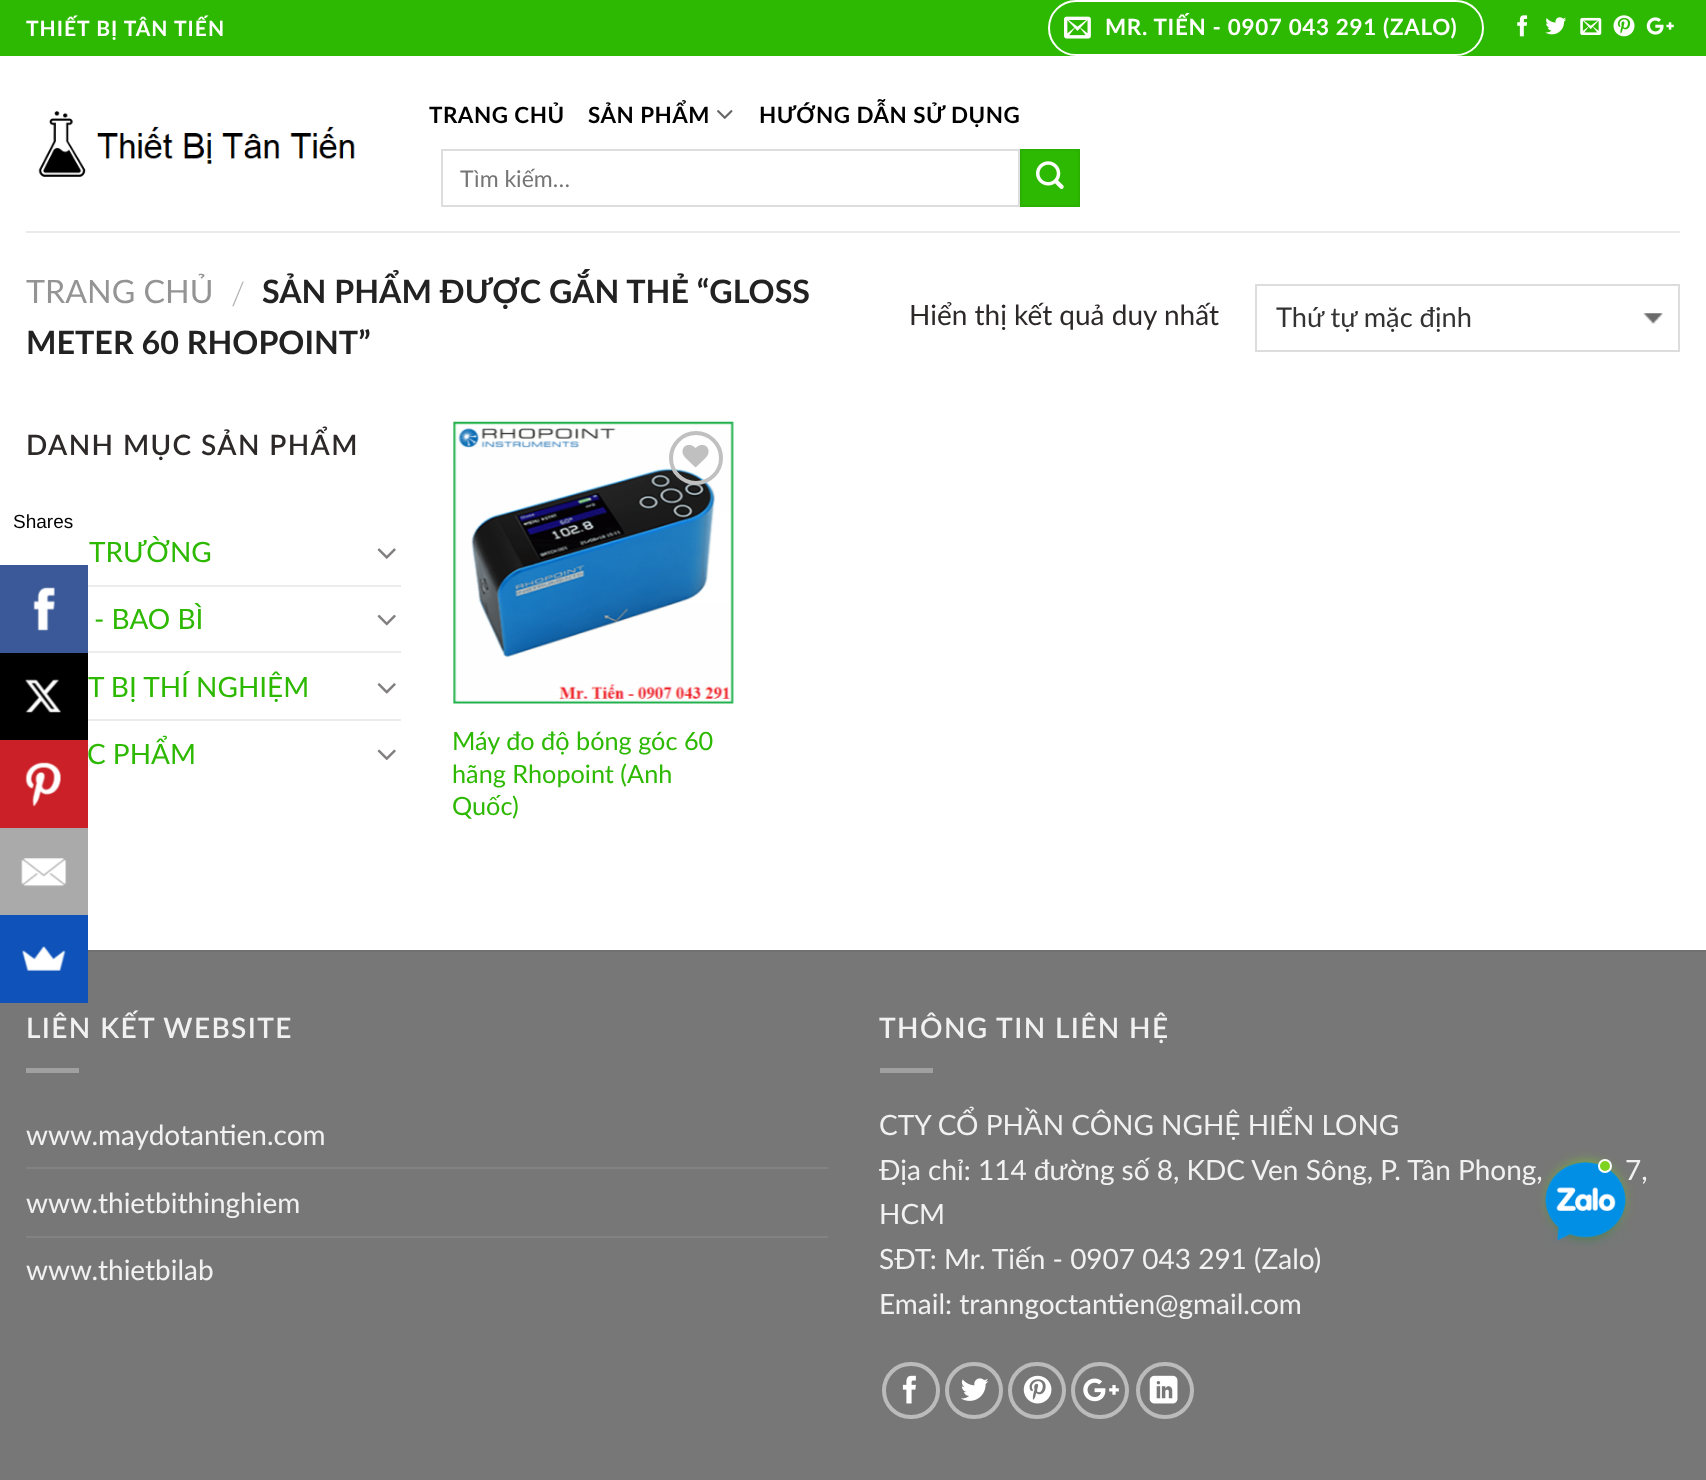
<!DOCTYPE html>
<meta charset="utf-8">
<style>body { margin: 0 } canvas { display: block }</style>
<canvas id="canvas" width="1706" height="1480"></canvas>
<img id="img1" src="img_01.png" hidden>
<img id="img2" src="img_02.png" hidden>
<img id="img3" src="img_03.png" hidden>
<img id="img4" src="img_04.png" hidden>
<img id="img5" src="img_05.png" hidden>
<img id="img6" src="img_06.png" hidden>
<img id="img7" src="img_07.png" hidden>
<img id="img8" src="img_08.png" hidden>
<img id="img9" src="img_09.png" hidden>
<img id="img10" src="img_10.png" hidden>
<img id="img11" src="img_11.png" hidden>
<img id="img12" src="img_12.png" hidden>
<img id="img13" src="img_13.png" hidden>
<img id="img14" src="img_14.png" hidden>
<img id="img15" src="img_15.png" hidden>
<img id="img16" src="img_16.png" hidden>
<img id="img17" src="img_17.png" hidden>
<img id="img18" src="img_18.png" hidden>
<img id="img19" src="img_19.png" hidden>
<img id="img20" src="img_20.png" hidden>
<img id="img21" src="img_21.png" hidden>
<img id="img22" src="img_22.png" hidden>
<img id="img23" src="img_23.png" hidden>
<img id="img24" src="img_24.png" hidden>
<img id="img25" src="img_25.png" hidden>
<img id="img26" src="img_26.png" hidden>
<img id="img27" src="img_27.png" hidden>
<script>
window.onload = function () {
	const canvas = document.getElementById("canvas");
	const ctx = canvas.getContext("2d");
	ctx.miterLimit = 4;
	ctx.fontKerning = "normal";
	function txt(s, x, y) {
		ctx.fillText(s, x, y);
	}
	function fill(x, y, w, h) {
		ctx.fillRect(x, y, w, h);
	}
	function img(id, x, y, w, h) {
		ctx.drawImage(document.getElementById(id), x, y, w, h);
	}

	ctx.fillStyle = "#FFFFFF";
	fill(0, 0, 1706, 1480);
	ctx.fillStyle = "#2DB902";
	fill(0, 0, 1706, 56);
	ctx.beginPath();
	ctx.roundRect(1049, 1, 434, 54, 27);
	ctx.strokeStyle = "#FFFFFF";
	ctx.lineWidth = 2;
	ctx.stroke();
	img("img1", 1064, 16, 27, 23);
	img("img2", 1517, 15, 11, 22);
	img("img3", 1545, 17, 22, 18);
	img("img4", 1580, 17, 22, 18);
	img("img5", 1613, 15, 22, 22);
	img("img6", 1646, 17, 28, 18);
	img("img7", 38, 111, 317, 66);
	img("img8", 717, 110, 16, 9);
	ctx.strokeStyle = "#DDDDDD";
	ctx.strokeRect(442, 150, 577, 56);
	ctx.beginPath();
	ctx.rect(1021, 150, 58, 56);
	ctx.fill();
	ctx.strokeStyle = "#2BB002";
	ctx.stroke();
	img("img9", 1036, 161, 28, 28);
	ctx.fillStyle = "#EAEAEA";
	fill(26, 231, 1654, 2);
	img("img10", 1643, 313, 20, 11);
	ctx.strokeStyle = "#DDDDDD";
	ctx.strokeRect(1256, 285, 423, 66);
	img("img11", 377, 548, 19, 11);
	ctx.fillStyle = "#ECECEC";
	fill(88, 585, 313, 2);
	img("img12", 377, 614, 19, 12);
	fill(88, 651, 313, 2);
	img("img13", 377, 683, 19, 11);
	fill(88, 719, 313, 2);
	img("img14", 377, 749, 19, 12);
	img("img15", 453, 421, 281, 283);
	ctx.beginPath();
	ctx.arc(696, 458, 25, 0, Math.PI * 2);
	ctx.strokeStyle = "#C0C0C0";
	ctx.lineWidth = 4;
	ctx.stroke();
	img("img16", 682, 444, 27, 24);
	ctx.fillStyle = "#777777";
	fill(0, 952, 1706, 528);
	ctx.fillStyle = "#717171";
	fill(88, 950, 1618, 2);
	ctx.fillStyle = "#A0A0A0";
	fill(26, 1068, 53, 5);
	ctx.fillStyle = "#828282";
	fill(26, 1167, 802, 2);
	fill(26, 1236, 802, 2);
	ctx.fillStyle = "#A0A0A0";
	fill(880, 1068, 53, 5);
	ctx.beginPath();
	ctx.roundRect(884, 1364, 54, 53, 26.5);
	ctx.strokeStyle = "#BBBBBB";
	ctx.stroke();
	img("img17", 902, 1375, 14, 29);
	ctx.beginPath();
	ctx.roundRect(947, 1364, 54, 53, 26.5);
	ctx.stroke();
	img("img18", 961, 1378, 28, 23);
	ctx.beginPath();
	ctx.roundRect(1010, 1364, 54, 53, 26.5);
	ctx.stroke();
	img("img19", 1023, 1375, 29, 29);
	ctx.beginPath();
	ctx.roundRect(1073, 1364, 54, 53, 26.5);
	ctx.stroke();
	img("img20", 1083, 1378, 36, 24);
	ctx.beginPath();
	ctx.roundRect(1138, 1364, 54, 53, 26.5);
	ctx.stroke();
	img("img21", 1149, 1375, 29, 29);
	ctx.fillStyle = "#3B5998";
	fill(0, 565, 88, 88);
	img("img22", 33, 587, 22, 44);
	ctx.fillStyle = "#000000";
	fill(0, 653, 88, 87);
	img("img23", 25, 679, 36, 34);
	ctx.fillStyle = "#CB2027";
	fill(0, 740, 88, 88);
	img("img24", 25, 762, 36, 45);
	ctx.fillStyle = "#AAAAAA";
	fill(0, 828, 88, 87);
	img("img25", 21, 858, 46, 29);
	ctx.fillStyle = "#0F52BA";
	fill(0, 915, 88, 88);
	img("img26", 22, 946, 44, 25);
	ctx.fillStyle = "#7ED321";
	ctx.filter = "blur(7px)";
	ctx.beginPath();
	ctx.roundRect(1551, 1164, 70, 70, 35);
	ctx.fill();
	ctx.filter = "none";
	ctx.letterSpacing = "1px";
	ctx.font = "bold 21px Lato";
	ctx.fillStyle = "#FFFFFF";
	txt("THIẾT BỊ TÂN TIẾN", 26, 36);
	ctx.letterSpacing = "0.7px";
	ctx.font = "bold 22.4px Lato";
	txt("MR. TIẾN - 0907 043 291 (ZALO)", 1105, 35);
	ctx.letterSpacing = "0.5px";
	ctx.fillStyle = "#000000";
	txt("TRANG CHỦ", 429, 123);
	txt("SẢN PHẨM", 588, 123);
	txt("HƯỚNG DẪN SỬ DỤNG", 759, 123);
	ctx.letterSpacing = "0px";
	ctx.font = "23px Lato";
	ctx.fillStyle = "#757575";
	txt("Tìm kiếm…", 460, 187);
	ctx.font = "32.25px Lato";
	ctx.fillStyle = "#949494";
	txt("TRANG CHỦ", 26, 303);
	ctx.font = "300 32.25px Lato";
	ctx.fillStyle = "#B2B2B2";
	txt("/", 231, 305);
	ctx.font = "bold 32.25px Lato";
	ctx.fillStyle = "#222222";
	txt("SẢN PHẨM ĐƯỢC GẮN THẺ “GLOSS", 262, 303);
	txt("METER 60 RHOPOINT”", 26, 354);
	ctx.font = "28px Lato";
	ctx.fillStyle = "#2D2929";
	txt("Hiển thị kết quả duy nhất", 909, 325);
	ctx.font = "27.25px Lato";
	ctx.fillStyle = "#333333";
	txt("Thứ tự mặc định", 1276, 327);
	ctx.letterSpacing = "1.4px";
	ctx.font = "600 28px Lato";
	ctx.fillStyle = "#2D2929";
	txt("DANH MỤC SẢN PHẨM", 26, 455);
	ctx.letterSpacing = "0px";
	ctx.font = "28px Lato";
	ctx.fillStyle = "#2DB902";
	txt("TRƯỜNG", 89, 562);
	txt("- BAO BÌ", 94, 629);
	txt("T BỊ THÍ NGHIỆM", 88, 697);
	txt("C PHẨM", 87, 764);
	ctx.font = "25.25px Lato";
	txt("Máy đo độ bóng góc 60", 452, 750);
	txt("hãng Rhopoint (Anh", 452, 783);
	txt("Quốc)", 452, 815);
	ctx.letterSpacing = "1.4px";
	ctx.font = "600 28px Lato";
	ctx.fillStyle = "#F1F1F1";
	txt("LIÊN KẾT WEBSITE", 26, 1038);
	ctx.letterSpacing = "0px";
	ctx.font = "28px Lato";
	txt("www.maydotantien.com", 26, 1145);
	txt("www.thietbithinghiem", 26, 1213);
	txt("www.thietbilab", 26, 1280);
	ctx.letterSpacing = "1.4px";
	ctx.font = "600 28px Lato";
	txt("THÔNG TIN LIÊN HỆ", 879, 1038);
	ctx.letterSpacing = "0px";
	ctx.font = "28px Lato";
	txt("CTY CỔ PHẦN CÔNG NGHỆ HIỂN LONG", 879, 1135);
	txt("Địa chỉ: 114 đường số 8, KDC Ven Sông, P. Tân Phong,", 879, 1180);
	txt("7,", 1625, 1180);
	txt("HCM", 879, 1224);
	txt("SĐT: Mr. Tiến - 0907 043 291 (Zalo)", 879, 1269);
	txt("Email: tranngoctantien@gmail.com", 879, 1314);
	ctx.font = "19px Liberation Sans";
	ctx.fillStyle = "#000000";
	txt("Shares", 13, 528);
	img("img27", 1544, 1162, 83, 84);
	ctx.fillStyle = "#7ED321";
	ctx.beginPath();
	ctx.arc(1605, 1166, 6, 0, Math.PI * 2);
	ctx.fill();
	ctx.strokeStyle = "#FFFFFF";
	ctx.lineWidth = 2;
	ctx.stroke();
};
</script>
